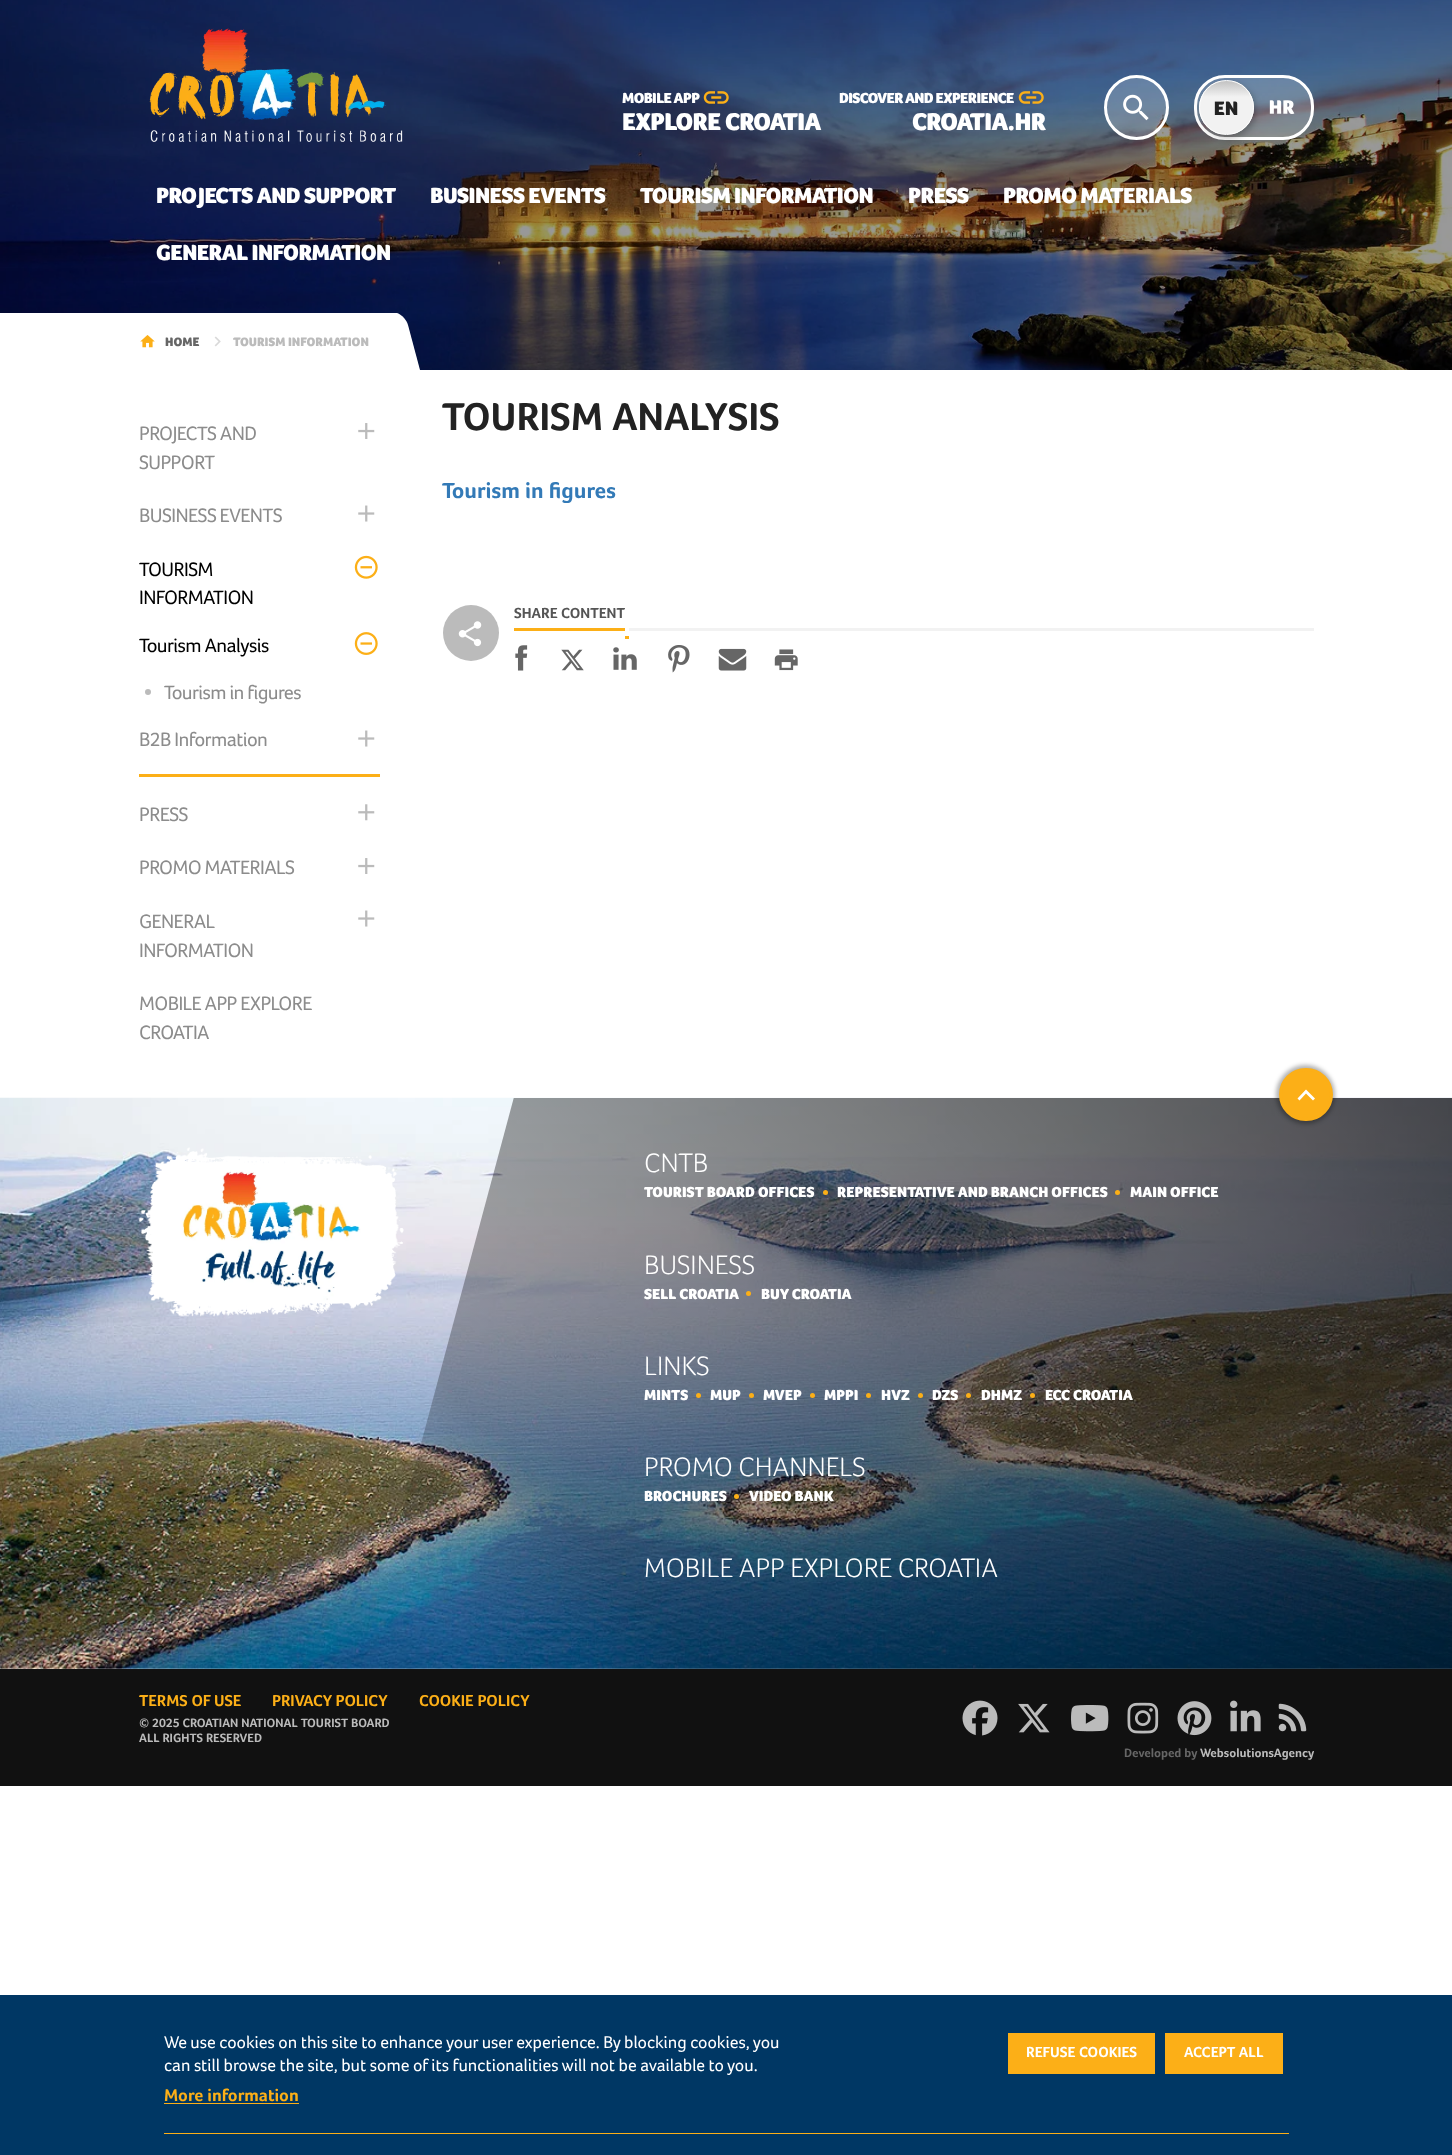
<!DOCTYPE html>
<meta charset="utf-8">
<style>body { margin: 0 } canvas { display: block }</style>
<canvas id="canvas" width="1452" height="2155"></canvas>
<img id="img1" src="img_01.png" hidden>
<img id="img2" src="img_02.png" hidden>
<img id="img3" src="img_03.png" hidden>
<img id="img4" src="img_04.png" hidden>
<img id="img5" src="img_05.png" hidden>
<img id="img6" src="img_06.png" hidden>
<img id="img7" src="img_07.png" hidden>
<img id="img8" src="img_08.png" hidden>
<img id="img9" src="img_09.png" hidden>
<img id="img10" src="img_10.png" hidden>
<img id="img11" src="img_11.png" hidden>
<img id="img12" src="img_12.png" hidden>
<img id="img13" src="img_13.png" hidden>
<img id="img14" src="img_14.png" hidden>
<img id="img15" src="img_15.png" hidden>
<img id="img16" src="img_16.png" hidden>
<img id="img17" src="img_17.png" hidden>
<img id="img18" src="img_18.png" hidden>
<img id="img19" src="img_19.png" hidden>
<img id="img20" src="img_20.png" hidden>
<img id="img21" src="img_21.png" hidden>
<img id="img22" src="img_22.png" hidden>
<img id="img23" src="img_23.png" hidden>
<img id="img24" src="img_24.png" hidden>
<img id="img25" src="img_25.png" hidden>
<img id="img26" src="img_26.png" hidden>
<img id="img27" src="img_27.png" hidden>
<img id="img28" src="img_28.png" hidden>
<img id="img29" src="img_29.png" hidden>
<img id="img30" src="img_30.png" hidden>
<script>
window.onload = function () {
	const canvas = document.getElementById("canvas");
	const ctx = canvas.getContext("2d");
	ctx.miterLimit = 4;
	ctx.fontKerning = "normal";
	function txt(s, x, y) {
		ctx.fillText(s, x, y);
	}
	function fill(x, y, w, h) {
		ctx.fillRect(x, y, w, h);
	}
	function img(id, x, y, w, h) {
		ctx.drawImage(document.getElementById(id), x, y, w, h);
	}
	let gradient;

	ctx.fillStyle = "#FFFFFF";
	fill(0, 0, 1452, 2155);
	img("img1", 0, 0, 1452, 370);
	img("img2", 149, 28, 254, 114);
	img("img3", 703, 91, 26, 13);
	img("img4", 1018, 91, 26, 13);
	ctx.fillStyle = "rgba(255, 255, 255, 0.2)";
	ctx.beginPath();
	ctx.roundRect(1195.5, 76.5, 117, 62, 29.5);
	ctx.fill();
	ctx.strokeStyle = "#FFFFFF";
	ctx.lineWidth = 3;
	ctx.stroke();
	ctx.fillStyle = "rgba(0, 0, 0, 0.25)";
	ctx.filter = "blur(3px)";
	ctx.beginPath();
	ctx.roundRect(1201, 83, 55, 55, 27.5);
	ctx.fill();
	ctx.filter = "none";
	ctx.save();
	ctx.beginPath();
	ctx.roundRect(1199, 80, 55, 55, 27.5);
	ctx.clip();
	gradient = ctx.createLinearGradient(1226, 81, 1226, 134);
	gradient.addColorStop(0, "#C2C2C2");
	gradient.addColorStop(0.3, "#F2F2F2");
	ctx.fillStyle = gradient;
	fill(1199, 81, 55, 53);
	ctx.restore();
	ctx.beginPath();
	ctx.arc(1226.5, 107.5, 27, 0, Math.PI * 2);
	ctx.lineWidth = 1;
	ctx.stroke();
	img("img5", 1214, 101, 24, 14);
	img("img6", 1269, 100, 26, 14);
	ctx.fillStyle = "rgba(255, 255, 255, 0.2)";
	ctx.beginPath();
	ctx.arc(1136.5, 107.5, 31, 0, Math.PI * 2);
	ctx.fill();
	ctx.lineWidth = 3;
	ctx.stroke();
	img("img7", 1123, 94, 26, 27);
	ctx.fillStyle = "#FFFFFF";
	fill(0, 313, 388, 57);
	img("img8", 140, 335, 15, 13);
	img("img9", 214, 336, 7, 11);
	ctx.save();
	ctx.beginPath();
	ctx.rect(0, 313, 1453, 57);
	ctx.clip();
	ctx.beginPath();
	ctx.moveTo(372, 312);
	ctx.lineTo(392, 312);
	ctx.bezierCurveTo(399, 312, 406, 318, 408, 325);
	ctx.lineTo(420, 370);
	ctx.lineTo(388, 370);
	ctx.closePath();
	ctx.fill();
	ctx.restore();
	img("img10", 358, 423, 17, 16);
	img("img11", 358, 505, 17, 17);
	img("img12", 354, 555, 24, 24);
	img("img13", 354, 632, 24, 23);
	ctx.fillStyle = "#BBBBBB";
	ctx.beginPath();
	ctx.arc(148, 692, 3, 0, Math.PI * 2);
	ctx.fill();
	img("img11", 358, 730, 17, 17);
	ctx.fillStyle = "#FCAF17";
	fill(139, 774, 241, 3);
	img("img14", 358, 804, 17, 17);
	img("img10", 358, 858, 17, 16);
	img("img11", 358, 910, 17, 17);
	ctx.fillStyle = "#BBBBBB";
	ctx.beginPath();
	ctx.arc(471, 633, 28, 0, Math.PI * 2);
	ctx.fill();
	img("img15", 458, 621, 24, 26);
	ctx.fillStyle = "#FCAF17";
	fill(514, 628, 111, 3);
	fill(625, 636, 4, 3);
	ctx.fillStyle = "#F2F2F2";
	fill(629, 628, 685, 3);
	img("img16", 515, 645, 13, 26);
	img("img17", 561, 649, 23, 22);
	img("img18", 613, 647, 24, 23);
	img("img19", 668, 645, 22, 28);
	img("img20", 718, 648, 29, 23);
	img("img21", 774, 649, 24, 22);
	img("img22", 0, 1097, 1452, 572);
	img("img23", 138, 1147, 266, 170);
	ctx.save();
	ctx.beginPath();
	ctx.rect(0, 1098, 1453, 571);
	ctx.clip();
	gradient = ctx.createLinearGradient(415, 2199, 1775, 938);
	gradient.addColorStop(0.22, "rgba(0, 0, 0, 0)");
	gradient.addColorStop(0.31, "rgba(0, 0, 0, 0.28)");
	gradient.addColorStop(0.85, "rgba(0, 0, 0, 0.7)");
	ctx.fillStyle = gradient;
	ctx.beginPath();
	ctx.moveTo(514, 1097);
	ctx.lineTo(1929, 1097);
	ctx.lineTo(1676, 2040);
	ctx.lineTo(261, 2040);
	ctx.closePath();
	ctx.fill();
	ctx.restore();
	ctx.fillStyle = "rgba(0, 0, 0, 0.3)";
	ctx.filter = "blur(2px)";
	ctx.beginPath();
	ctx.roundRect(1276, 1065, 59, 59, 29.5);
	ctx.fill();
	ctx.filter = "none";
	ctx.fillStyle = "#FCAF17";
	ctx.beginPath();
	ctx.roundRect(1280.5, 1069.5, 51, 50, 25);
	ctx.fill();
	ctx.strokeStyle = "#FCAF17";
	ctx.stroke();
	ctx.fillStyle = "#FFFFFF";
	ctx.beginPath();
	ctx.moveTo(1306, 1089.5);
	ctx.lineTo(1315, 1098.5);
	ctx.lineTo(1313, 1100.5);
	ctx.lineTo(1306, 1093.5);
	ctx.lineTo(1299.5, 1100.5);
	ctx.lineTo(1297.5, 1098.5);
	ctx.closePath();
	ctx.fill();
	ctx.fillStyle = "#FCAF17";
	ctx.beginPath();
	ctx.arc(825.5, 1192.5, 2.5, 0, Math.PI * 2);
	ctx.fill();
	ctx.beginPath();
	ctx.arc(1117.5, 1192.5, 2.5, 0, Math.PI * 2);
	ctx.fill();
	ctx.beginPath();
	ctx.arc(748.5, 1293.5, 2.5, 0, Math.PI * 2);
	ctx.fill();
	ctx.beginPath();
	ctx.arc(698.5, 1395.5, 2.5, 0, Math.PI * 2);
	ctx.fill();
	ctx.beginPath();
	ctx.arc(751.5, 1395.5, 2.5, 0, Math.PI * 2);
	ctx.fill();
	ctx.beginPath();
	ctx.arc(812.5, 1395.5, 2.5, 0, Math.PI * 2);
	ctx.fill();
	ctx.beginPath();
	ctx.arc(868.5, 1395.5, 2.5, 0, Math.PI * 2);
	ctx.fill();
	ctx.beginPath();
	ctx.arc(920.5, 1395.5, 2.5, 0, Math.PI * 2);
	ctx.fill();
	ctx.beginPath();
	ctx.arc(968.5, 1395.5, 2.5, 0, Math.PI * 2);
	ctx.fill();
	ctx.beginPath();
	ctx.arc(1032.5, 1395.5, 2.5, 0, Math.PI * 2);
	ctx.fill();
	ctx.beginPath();
	ctx.arc(736.5, 1496.5, 2.5, 0, Math.PI * 2);
	ctx.fill();
	ctx.fillStyle = "#111111";
	fill(0, 1669, 1452, 117);
	img("img24", 962, 1700, 36, 36);
	img("img25", 1018, 1703, 32, 30);
	img("img26", 1071, 1705, 38, 27);
	img("img27", 1127, 1702, 32, 32);
	img("img28", 1177, 1701, 35, 35);
	img("img29", 1230, 1700, 31, 32);
	img("img30", 1278, 1703, 29, 29);
	ctx.fillStyle = "#003764";
	fill(0, 1995, 1452, 160);
	ctx.fillStyle = "#FCAF17";
	fill(164, 2103, 135, 1);
	fill(1008, 2033, 147, 41);
	fill(1165, 2033, 118, 41);
	fill(164, 2133, 1125, 1);
	ctx.letterSpacing = "-0.6px";
	ctx.font = "900 15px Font";
	ctx.fillStyle = "#FFFFFF";
	txt("MOBILE APP", 622, 103);
	ctx.font = "900 25px Font";
	txt("EXPLORE CROATIA", 622, 130);
	ctx.font = "900 15px Font";
	txt("DISCOVER AND EXPERIENCE", 839, 103);
	ctx.font = "900 25px Font";
	txt("CROATIA.HR", 912, 130);
	ctx.font = "900 22.5px Font";
	txt("PROJECTS AND SUPPORT", 156, 203);
	txt("BUSINESS EVENTS", 430, 203);
	txt("TOURISM INFORMATION", 640, 203);
	txt("PRESS", 908, 203);
	txt("PROMO MATERIALS", 1003, 203);
	txt("GENERAL INFORMATION", 156, 260);
	ctx.letterSpacing = "0px";
	ctx.font = "900 12.5px Font";
	ctx.fillStyle = "#666666";
	txt("HOME", 165, 346);
	ctx.fillStyle = "#BBBBBB";
	txt("TOURISM INFORMATION", 233, 346);
	ctx.letterSpacing = "-0.6px";
	ctx.font = "20px Font";
	ctx.fillStyle = "#8C8C8C";
	txt("PROJECTS AND", 139, 440);
	txt("SUPPORT", 139, 469);
	txt("BUSINESS EVENTS", 139, 522);
	ctx.fillStyle = "#000000";
	txt("TOURISM", 139, 576);
	txt("INFORMATION", 139, 604);
	txt("Tourism Analysis", 139, 652);
	ctx.fillStyle = "#8C8C8C";
	txt("Tourism in figures", 164, 699);
	txt("B2B Information", 139, 746);
	txt("PRESS", 139, 821);
	txt("PROMO MATERIALS", 139, 874);
	txt("GENERAL", 139, 928);
	txt("INFORMATION", 139, 957);
	txt("MOBILE APP EXPLORE", 139, 1010);
	txt("CROATIA", 139, 1039);
	ctx.letterSpacing = "0px";
	ctx.font = "bold 40px Font";
	ctx.fillStyle = "#222222";
	txt("TOURISM ANALYSIS", 442, 430);
	ctx.font = "bold 22.5px Font";
	ctx.fillStyle = "#337AB7";
	txt("Tourism in figures", 442, 498);
	ctx.font = "bold 15px Font";
	ctx.fillStyle = "#555555";
	txt("SHARE CONTENT", 514, 618);
	ctx.font = "300 27.5px Font";
	ctx.fillStyle = "#FFFFFF";
	txt("CNTB", 644, 1172);
	ctx.font = "900 15px Font";
	txt("TOURIST BOARD OFFICES", 644, 1197);
	txt("REPRESENTATIVE AND BRANCH OFFICES", 837, 1197);
	txt("MAIN OFFICE", 1130, 1197);
	ctx.font = "300 27.5px Font";
	txt("BUSINESS", 644, 1274);
	ctx.font = "900 15px Font";
	txt("SELL CROATIA", 644, 1299);
	txt("BUY CROATIA", 761, 1299);
	ctx.font = "300 27.5px Font";
	txt("LINKS", 644, 1375);
	ctx.font = "900 15px Font";
	txt("MINTS", 644, 1400);
	txt("MUP", 710, 1400);
	txt("MVEP", 763, 1400);
	txt("MPPI", 824, 1400);
	txt("HVZ", 881, 1400);
	txt("DZS", 932, 1400);
	txt("DHMZ", 981, 1400);
	txt("ECC CROATIA", 1045, 1400);
	ctx.font = "300 27.5px Font";
	txt("PROMO CHANNELS", 644, 1476);
	ctx.font = "900 15px Font";
	txt("BROCHURES", 644, 1501);
	txt("VIDEO BANK", 749, 1501);
	ctx.font = "300 27.5px Font";
	txt("MOBILE APP EXPLORE CROATIA", 644, 1577);
	ctx.font = "bold 16.25px Font";
	ctx.fillStyle = "#FCAF17";
	txt("TERMS OF USE", 139, 1706);
	txt("PRIVACY POLICY", 272, 1706);
	txt("COOKIE POLICY", 419, 1706);
	ctx.font = "bold 12.5px Font";
	ctx.fillStyle = "#BBBBBB";
	txt("© 2025 CROATIAN NATIONAL TOURIST BOARD", 139, 1727);
	txt("ALL RIGHTS RESERVED", 139, 1742);
	ctx.fillStyle = "#666666";
	txt("Developed by", 1124, 1757);
	ctx.fillStyle = "#BBBBBB";
	txt("WebsolutionsAgency", 1200, 1757);
	ctx.font = "17.5px Font";
	ctx.fillStyle = "#FFFFFF";
	txt("We use cookies on this site to enhance your user experience. By blocking cookies, you", 164, 2048);
	txt("can still browse the site, but some of its functionalities will not be available to you.", 164, 2071);
	ctx.font = "bold 17.5px Font";
	ctx.fillStyle = "#FCAF17";
	txt("More information", 164, 2101);
	ctx.font = "bold 15px Font";
	ctx.fillStyle = "#FFFFFF";
	txt("REFUSE COOKIES", 1026, 2057);
	txt("ACCEPT ALL", 1184, 2057);
};
</script>
